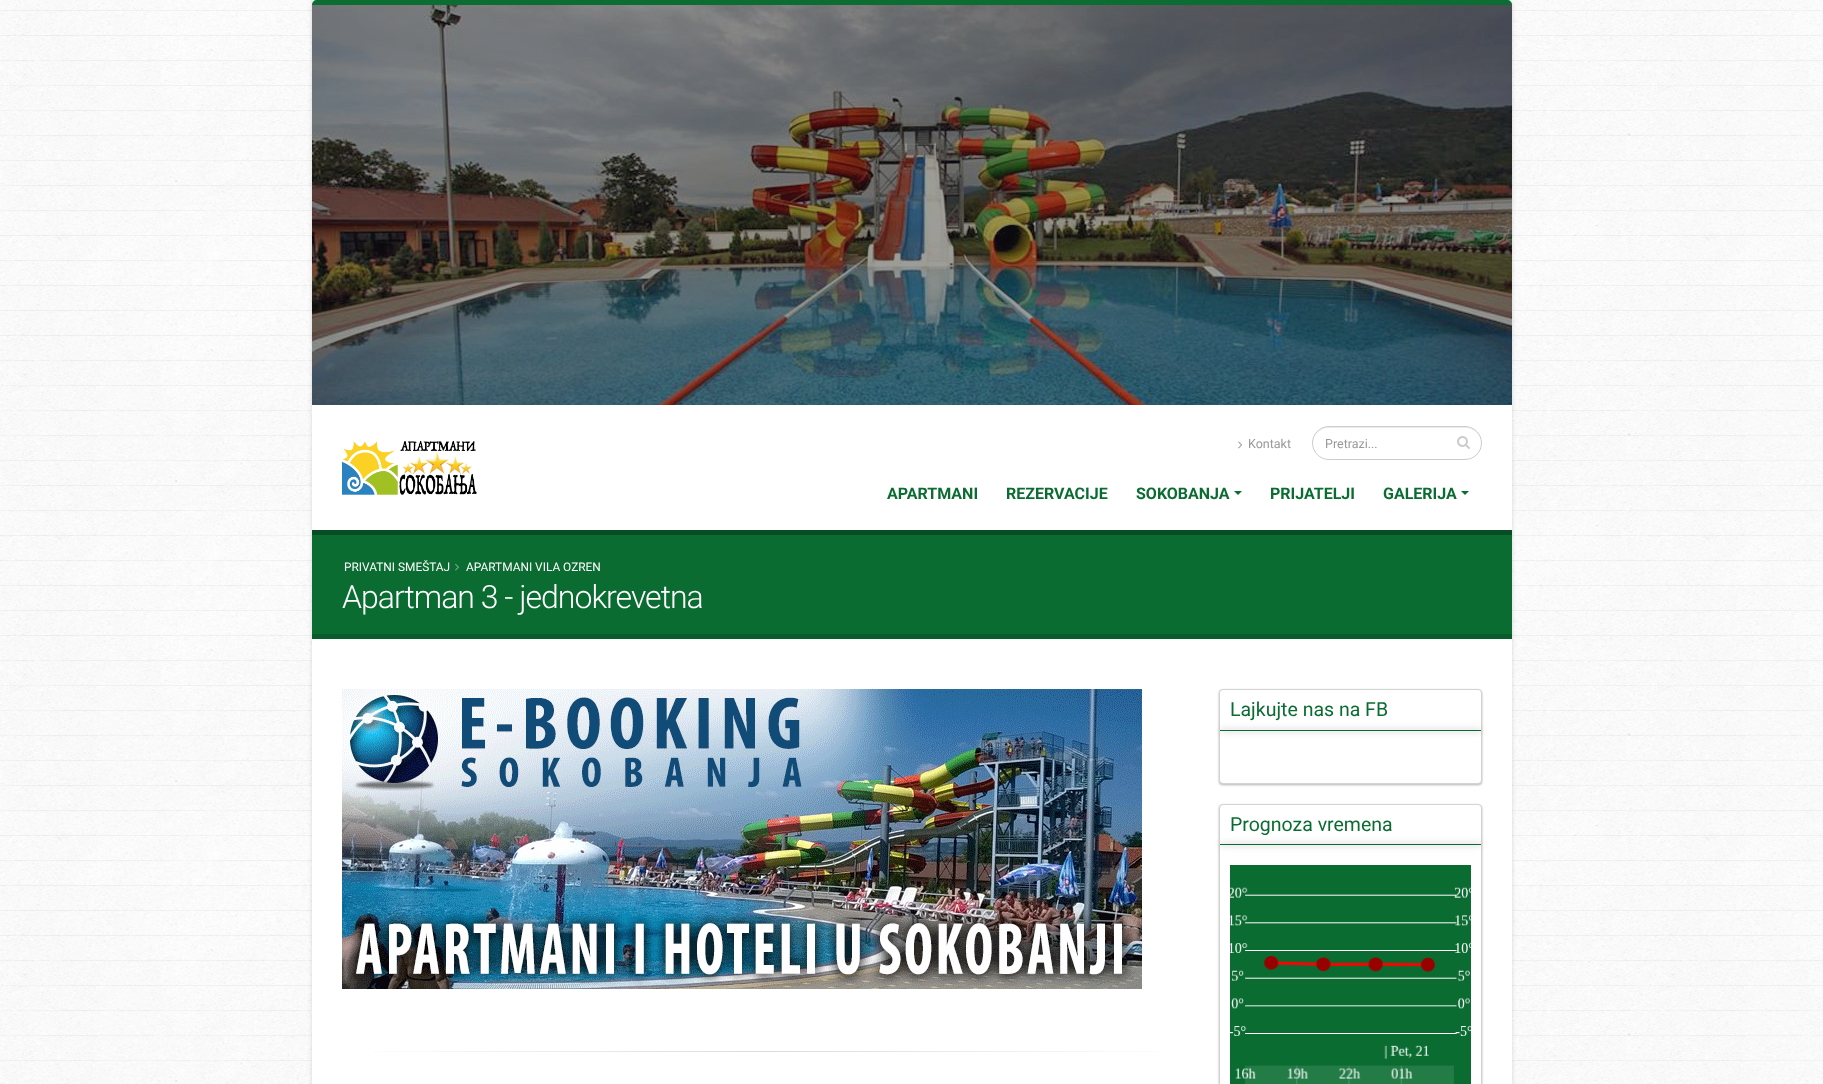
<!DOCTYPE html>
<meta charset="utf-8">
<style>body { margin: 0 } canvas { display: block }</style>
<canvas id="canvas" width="1823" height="1084"></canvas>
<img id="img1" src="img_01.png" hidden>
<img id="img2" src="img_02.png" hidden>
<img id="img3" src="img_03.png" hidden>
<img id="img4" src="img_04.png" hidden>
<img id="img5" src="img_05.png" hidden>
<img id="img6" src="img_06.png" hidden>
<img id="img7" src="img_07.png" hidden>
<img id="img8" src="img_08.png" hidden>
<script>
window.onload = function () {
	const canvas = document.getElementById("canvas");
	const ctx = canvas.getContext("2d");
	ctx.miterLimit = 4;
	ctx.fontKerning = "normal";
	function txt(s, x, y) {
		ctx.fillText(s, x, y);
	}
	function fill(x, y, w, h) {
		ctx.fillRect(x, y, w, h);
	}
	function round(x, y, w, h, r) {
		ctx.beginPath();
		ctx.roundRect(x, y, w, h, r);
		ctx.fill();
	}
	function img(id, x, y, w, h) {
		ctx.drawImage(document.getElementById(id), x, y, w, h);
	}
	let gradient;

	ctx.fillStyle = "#FFFFFF";
	fill(0, 0, 1823, 1084);
	img("img1", 0, 0, 1823, 1084);
	ctx.fillStyle = "rgba(0, 0, 0, 0.15)";
	ctx.filter = "blur(2px)";
	ctx.beginPath();
	ctx.roundRect(312, 0, 1200, 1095, 5);
	ctx.fill();
	ctx.filter = "none";
	ctx.fillStyle = "#FFFFFF";
	round(312, 0, 1200, 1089, 5);
	ctx.fillStyle = "rgba(9, 107, 48, 0.99)";
	ctx.beginPath();
	ctx.moveTo(317, 0);
	ctx.bezierCurveTo(314, 0, 312, 2, 312, 5);
	ctx.lineTo(1512, 5);
	ctx.bezierCurveTo(1512, 2, 1510, 0, 1507, 0);
	ctx.closePath();
	ctx.fill();
	ctx.fillStyle = "#171717";
	fill(312, 5, 1200, 400);
	img("img2", 312, 5, 1200, 400);
	img("img3", 342, 441, 135, 54);
	img("img4", 1238, 441, 4, 8);
	ctx.fillStyle = "#ECECEC";
	ctx.beginPath();
	ctx.moveTo(1329, 428);
	ctx.lineTo(1465, 428);
	ctx.bezierCurveTo(1474, 428, 1481, 435, 1481, 443);
	ctx.bezierCurveTo(1481, 434, 1474, 427, 1465, 427);
	ctx.lineTo(1329, 427);
	ctx.bezierCurveTo(1320, 427, 1313, 434, 1313, 443);
	ctx.bezierCurveTo(1313, 435, 1320, 428, 1329, 428);
	ctx.closePath();
	ctx.fill();
	ctx.beginPath();
	ctx.roundRect(1312.5, 426.5, 169, 33, 16.5);
	ctx.strokeStyle = "#CCCCCC";
	ctx.stroke();
	img("img5", 1457, 436, 13, 13);
	ctx.fillStyle = "#0B6C32";
	ctx.beginPath();
	ctx.moveTo(1234, 491);
	ctx.lineTo(1242, 491);
	ctx.lineTo(1238, 495);
	ctx.closePath();
	ctx.fill();
	ctx.beginPath();
	ctx.moveTo(1461, 491);
	ctx.lineTo(1469, 491);
	ctx.lineTo(1465, 495);
	ctx.closePath();
	ctx.fill();
	fill(312, 535, 1200, 99);
	ctx.fillStyle = "#084C23";
	fill(312, 530, 1200, 5);
	ctx.fillStyle = "#095C2B";
	fill(312, 634, 1200, 5);
	img("img6", 455, 564, 4, 7);
	img("img7", 342, 689, 800, 300);
	gradient = ctx.createLinearGradient(342, 1052, 1189, 1052);
	gradient.addColorStop(0, "#FFFFFF");
	gradient.addColorStop(0.5, "#DBDBDB");
	gradient.addColorStop(1, "#FFFFFF");
	ctx.fillStyle = gradient;
	fill(371, 1051, 789, 1);
	ctx.fillStyle = "rgba(0, 0, 0, 0.3)";
	ctx.filter = "blur(1px)";
	ctx.beginPath();
	ctx.roundRect(1219, 690, 263, 95, 4);
	ctx.fill();
	ctx.filter = "none";
	ctx.fillStyle = "#FFFFFF";
	ctx.beginPath();
	ctx.roundRect(1219.5, 689.5, 262, 94, 3.5);
	ctx.fill();
	ctx.strokeStyle = "#D3D3D3";
	ctx.stroke();
	ctx.fillStyle = "rgba(0, 0, 0, 0.5)";
	ctx.filter = "blur(3px)";
	ctx.beginPath();
	ctx.rect(1220, 730, 261, 1);
	ctx.fill();
	ctx.filter = "none";
	ctx.fillStyle = "#0B6C32";
	fill(1220, 730, 261, 1);
	ctx.fillStyle = "rgba(0, 0, 0, 0.3)";
	ctx.filter = "blur(1px)";
	ctx.beginPath();
	ctx.roundRect(1219, 805, 263, 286, 4);
	ctx.fill();
	ctx.filter = "none";
	ctx.fillStyle = "#FFFFFF";
	ctx.beginPath();
	ctx.roundRect(1219.5, 804.5, 262, 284, 3.5);
	ctx.fill();
	ctx.stroke();
	ctx.fillStyle = "rgba(0, 0, 0, 0.5)";
	ctx.filter = "blur(3px)";
	ctx.beginPath();
	ctx.rect(1220, 844, 261, 1);
	ctx.fill();
	ctx.filter = "none";
	ctx.fillStyle = "#0B6C32";
	fill(1220, 844, 261, 1);
	fill(1230, 865, 241, 219);
	img("img8", 1230, 887, 241, 197);
	ctx.font = "12.5px Roboto";
	ctx.fillStyle = "#999999";
	txt("Kontakt", 1248, 448);
	txt("Pretrazi...", 1325, 448);
	ctx.font = "bold 16px Roboto";
	ctx.fillStyle = "#0B6C32";
	txt("APARTMANI", 887, 499);
	txt("REZERVACIJE", 1006, 499);
	txt("SOKOBANJA", 1136, 499);
	txt("PRIJATELJI", 1270, 499);
	txt("GALERIJA", 1383, 499);
	ctx.font = "11.9px Roboto";
	ctx.fillStyle = "#FFFFFF";
	txt("PRIVATNI SMEŠTAJ", 344, 571);
	txt("APARTMANI VILA OZREN", 466, 571);
	ctx.letterSpacing = "-1px";
	ctx.font = "300 32px Roboto";
	txt("Apartman 3 - jednokrevetna", 342, 608);
	ctx.letterSpacing = "0px";
	ctx.font = "19.5px Roboto";
	ctx.fillStyle = "#0B6C32";
	txt("Lajkujte nas na FB", 1230, 716);
	txt("Prognoza vremena", 1230, 831);
};
</script>
